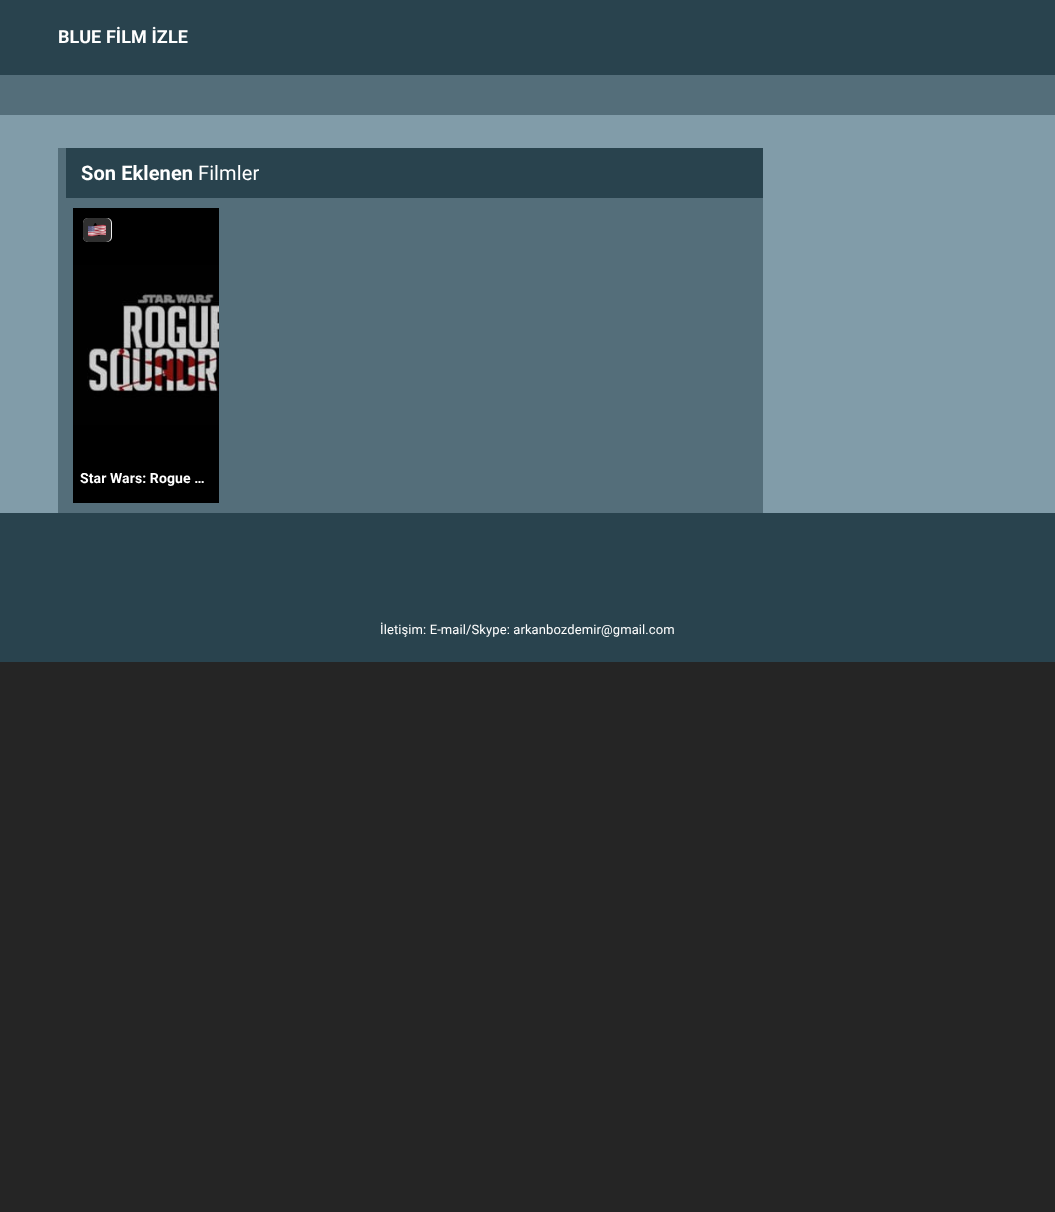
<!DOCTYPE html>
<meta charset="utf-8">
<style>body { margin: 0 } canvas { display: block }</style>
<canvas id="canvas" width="1055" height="1212"></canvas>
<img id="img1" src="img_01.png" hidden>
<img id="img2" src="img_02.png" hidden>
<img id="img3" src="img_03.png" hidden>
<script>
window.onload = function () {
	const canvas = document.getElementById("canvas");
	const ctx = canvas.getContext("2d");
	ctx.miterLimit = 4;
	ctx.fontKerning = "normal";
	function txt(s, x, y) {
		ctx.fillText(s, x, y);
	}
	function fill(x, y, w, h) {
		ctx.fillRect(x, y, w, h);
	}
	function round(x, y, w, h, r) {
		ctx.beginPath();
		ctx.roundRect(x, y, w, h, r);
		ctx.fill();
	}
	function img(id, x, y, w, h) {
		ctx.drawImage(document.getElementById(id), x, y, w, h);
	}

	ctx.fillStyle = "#252525";
	fill(0, 0, 1055, 1212);
	ctx.fillStyle = "#29434E";
	fill(0, 0, 1055, 75);
	ctx.fillStyle = "#546E7A";
	fill(0, 75, 1055, 40);
	ctx.fillStyle = "#819CA9";
	fill(0, 115, 1055, 398);
	ctx.fillStyle = "#29434E";
	fill(66, 148, 697, 50);
	ctx.fillStyle = "#546E7A";
	fill(58, 148, 8, 50);
	fill(58, 198, 705, 315);
	img("img1", 73, 208, 146, 295);
	ctx.fillStyle = "#EFEFEF";
	round(83, 218, 29, 24, 5);
	img("img2", 92, 223, 8, 13);
	ctx.fillStyle = "rgba(0, 0, 0, 0.8)";
	round(83, 218, 28, 24, 5);
	img("img3", 88, 224, 18, 13);
	ctx.fillStyle = "#29434E";
	fill(0, 513, 1055, 149);
	ctx.letterSpacing = "0.1px";
	ctx.font = "bold 18px Roboto";
	ctx.fillStyle = "#FFFFFF";
	txt("BLUE FİLM İZLE", 58, 43);
	ctx.font = "bold 20px Roboto";
	txt("Son Eklenen", 81, 180);
	ctx.font = "20px Roboto";
	txt("Filmler", 198, 180);
	ctx.font = "bold 14px Roboto";
	txt("Star Wars: Rogue …", 80, 483);
	ctx.font = "13px Roboto";
	txt("İletişim: E-mail/Skype: arkanbozdemir@gmail.com", 380, 634);
};
</script>
